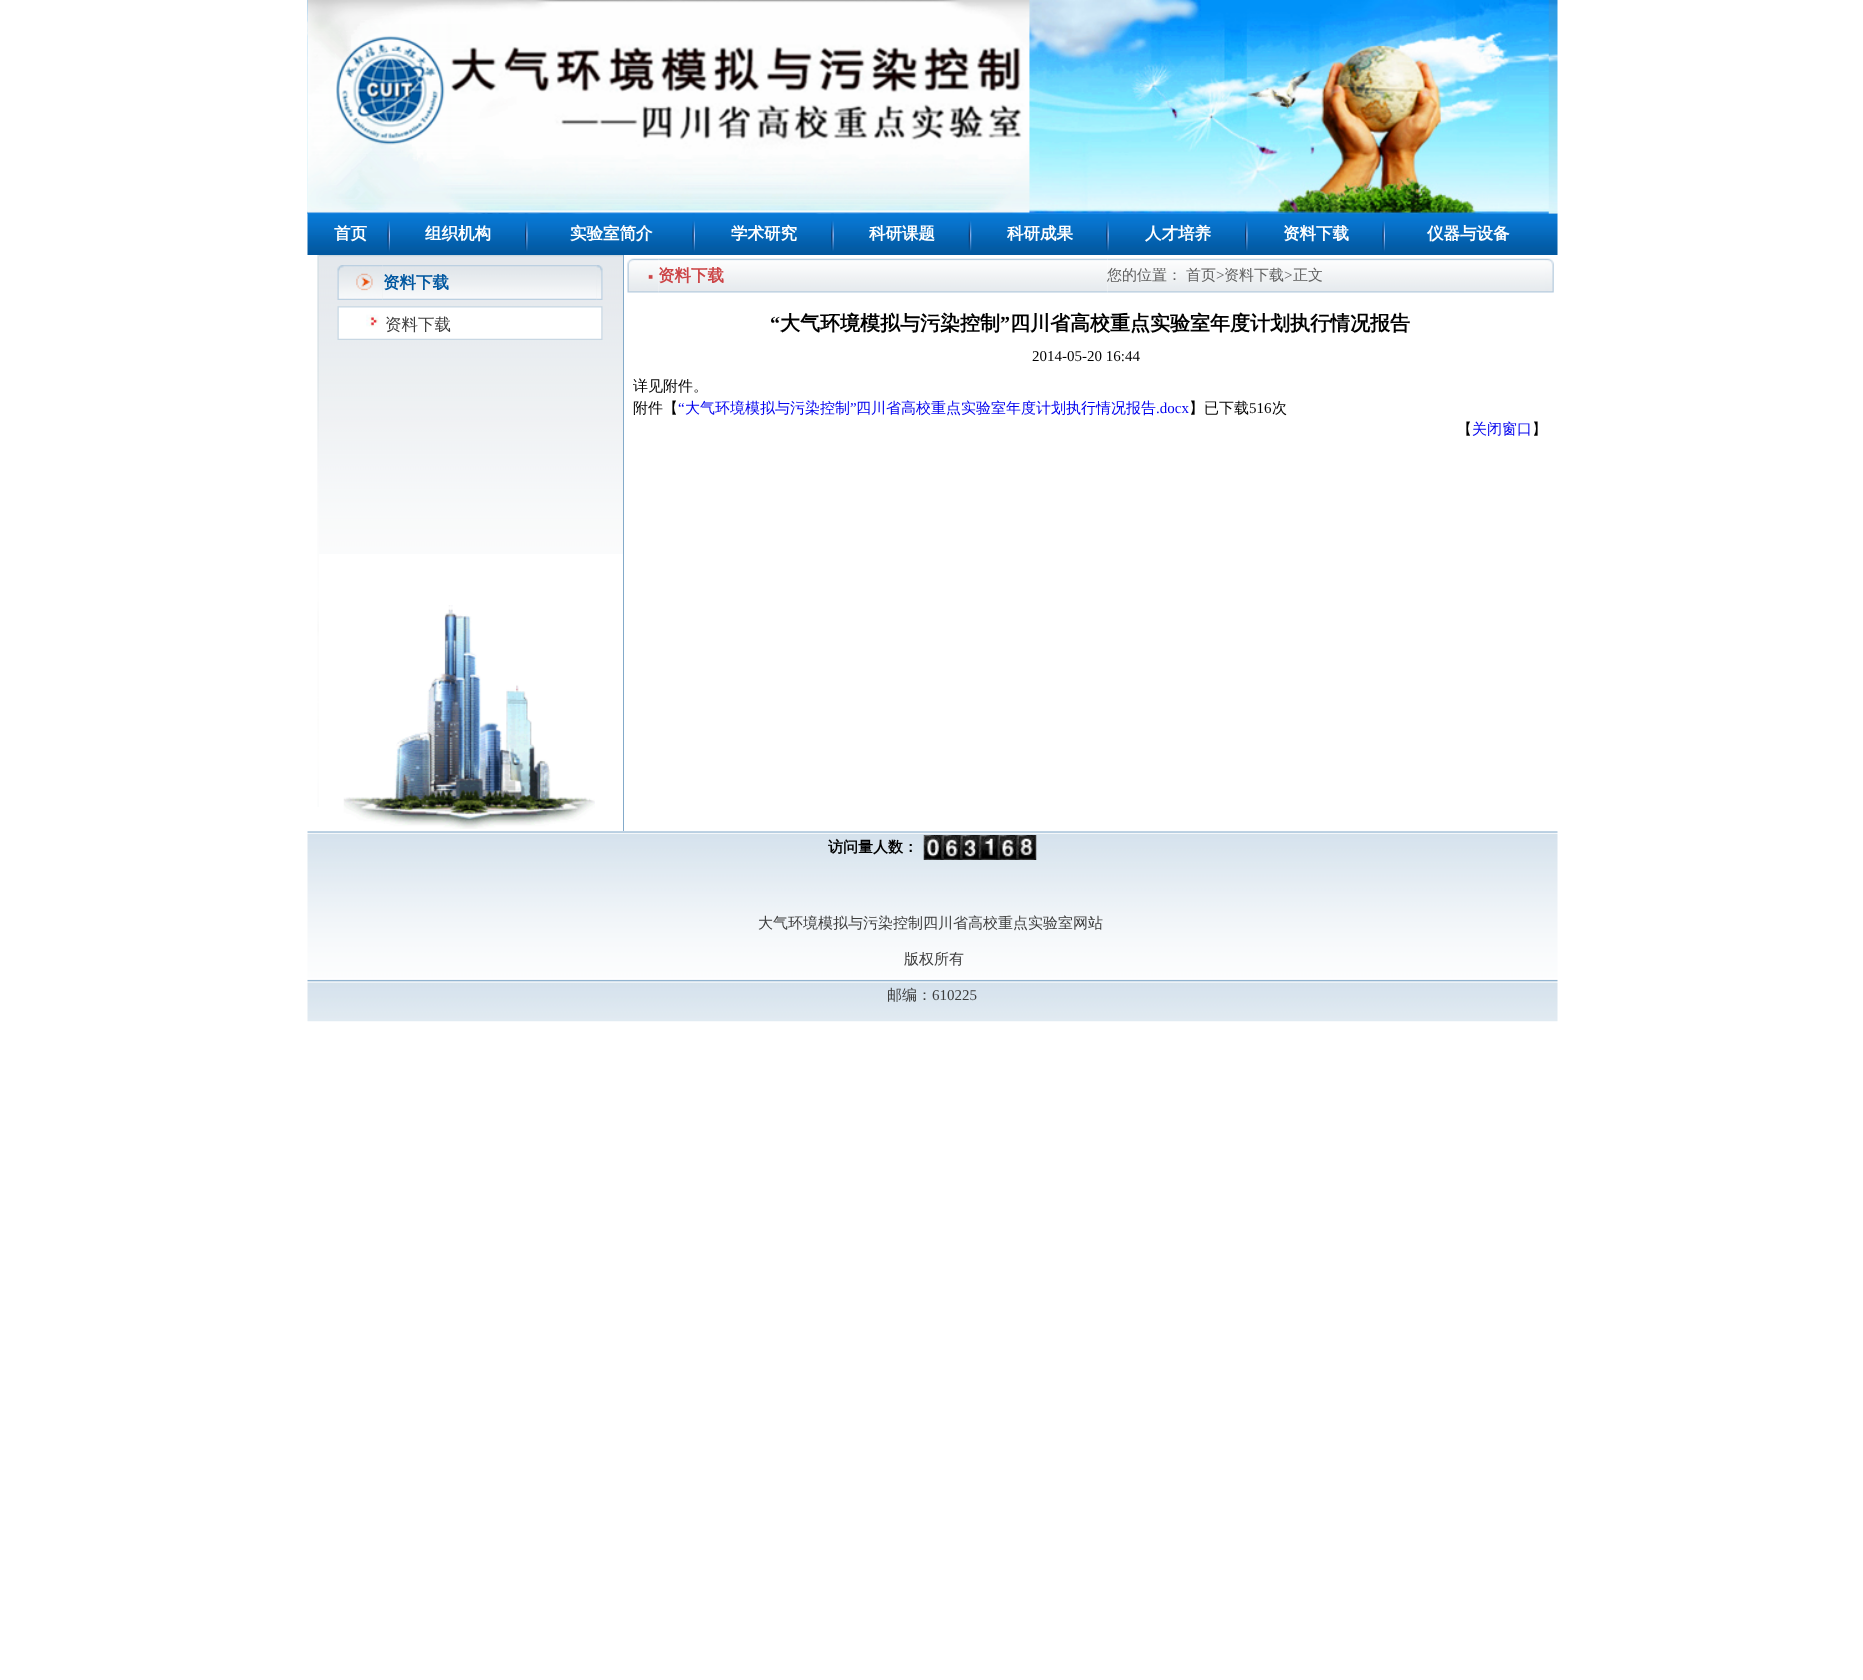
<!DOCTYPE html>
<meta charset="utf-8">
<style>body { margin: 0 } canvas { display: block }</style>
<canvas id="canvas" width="1863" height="1680"></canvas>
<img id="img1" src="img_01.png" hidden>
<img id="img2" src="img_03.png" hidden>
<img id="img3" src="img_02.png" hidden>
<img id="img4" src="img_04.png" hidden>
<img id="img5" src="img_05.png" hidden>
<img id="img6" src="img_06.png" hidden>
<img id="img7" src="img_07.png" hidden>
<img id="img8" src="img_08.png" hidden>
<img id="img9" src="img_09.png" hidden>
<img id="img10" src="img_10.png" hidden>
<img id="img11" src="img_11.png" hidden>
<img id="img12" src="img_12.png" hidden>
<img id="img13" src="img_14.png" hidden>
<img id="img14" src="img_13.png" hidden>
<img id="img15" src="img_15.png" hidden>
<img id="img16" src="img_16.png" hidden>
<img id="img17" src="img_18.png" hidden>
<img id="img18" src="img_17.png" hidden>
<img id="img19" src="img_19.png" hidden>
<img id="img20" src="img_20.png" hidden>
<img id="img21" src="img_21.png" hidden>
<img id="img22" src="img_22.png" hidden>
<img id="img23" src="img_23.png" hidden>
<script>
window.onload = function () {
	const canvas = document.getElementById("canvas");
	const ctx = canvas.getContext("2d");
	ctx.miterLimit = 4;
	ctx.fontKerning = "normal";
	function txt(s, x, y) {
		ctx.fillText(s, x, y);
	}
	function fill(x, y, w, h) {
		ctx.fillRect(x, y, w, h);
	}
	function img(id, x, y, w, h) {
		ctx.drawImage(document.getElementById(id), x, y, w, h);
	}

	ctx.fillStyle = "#FFFFFF";
	fill(0, 0, 1863, 1680);
	img("img1", 307, 0, 1251, 214);
	img("img2", 307, 213, 1251, 42);
	img("img3", 307, 0, 1242, 214);
	img("img4", 387, 221, 3, 31);
	img("img5", 525, 213, 3, 38);
	img("img6", 692, 213, 3, 39);
	img("img7", 831, 213, 3, 38);
	img("img8", 968, 213, 4, 38);
	img("img9", 1106, 213, 3, 38);
	img("img10", 1245, 213, 3, 38);
	img("img4", 1382, 221, 3, 31);
	img("img11", 317, 255, 2, 552);
	img("img12", 319, 255, 304, 299);
	ctx.fillStyle = "#83AACA";
	fill(623, 255, 1, 576);
	img("img13", 382, 265, 215, 35);
	img("img14", 337, 265, 46, 35);
	img("img15", 596, 265, 7, 35);
	img("img16", 337, 306, 266, 34);
	img("img17", 658, 258, 450, 35);
	img("img18", 627, 258, 32, 35);
	img("img19", 1107, 258, 438, 35);
	img("img20", 1545, 258, 9, 35);
	img("img21", 343, 605, 252, 224);
	img("img22", 307, 831, 1251, 191);
	img("img23", 923, 835, 114, 25);
	ctx.font = "bold 16.5px WenQuanYi Zen Hei";
	ctx.fillStyle = "#FFFFFF";
	txt("首页", 334, 239);
	txt("组织机构", 425, 239);
	txt("实验室简介", 570, 239);
	txt("学术研究", 731, 239);
	txt("科研课题", 869, 239);
	txt("科研成果", 1007, 239);
	txt("人才培养", 1145, 239);
	txt("资料下载", 1283, 239);
	txt("仪器与设备", 1427, 239);
	ctx.fillStyle = "#0157A0";
	txt("资料下载", 383, 288);
	ctx.font = "500 16.5px WenQuanYi Zen Hei";
	ctx.fillStyle = "#3D3D3D";
	txt("资料下载", 385, 330);
	ctx.font = "bold 16.5px WenQuanYi Zen Hei";
	ctx.fillStyle = "#CC4446";
	txt("资料下载", 658, 281);
	ctx.font = "500 15px WenQuanYi Zen Hei";
	ctx.fillStyle = "#606060";
	txt("您的位置：", 1107, 280);
	txt("首页", 1186, 280);
	ctx.font = "15px Liberation Serif";
	txt(">", 1216, 280);
	ctx.font = "500 15px WenQuanYi Zen Hei";
	txt("资料下载", 1224, 280);
	ctx.font = "15px Liberation Serif";
	txt(">", 1284, 280);
	ctx.font = "500 15px WenQuanYi Zen Hei";
	txt("正文", 1293, 280);
	ctx.font = "bold 20px Liberation Serif";
	ctx.fillStyle = "#000000";
	txt("“", 770, 330);
	ctx.font = "bold 20px WenQuanYi Zen Hei";
	txt("大气环境模拟与污染控制", 780, 330);
	ctx.font = "bold 20px Liberation Serif";
	txt("”", 1000, 330);
	ctx.font = "bold 20px WenQuanYi Zen Hei";
	txt("四川省高校重点实验室年度计划执行情况报告", 1010, 330);
	ctx.font = "15px Liberation Serif";
	txt("2014-05-20 16:44", 1032, 361);
	ctx.font = "500 15px WenQuanYi Zen Hei";
	txt("详见附件。", 633, 391);
	txt("附件【", 633, 413);
	ctx.font = "15px Liberation Serif";
	ctx.fillStyle = "#0000EE";
	txt("“", 678, 413);
	ctx.font = "500 15px WenQuanYi Zen Hei";
	txt("大气环境模拟与污染控制", 685, 413);
	ctx.font = "15px Liberation Serif";
	txt("”", 850, 413);
	ctx.font = "500 15px WenQuanYi Zen Hei";
	txt("四川省高校重点实验室年度计划执行情况报告", 856, 413);
	ctx.font = "15px Liberation Serif";
	txt(".docx", 1156, 413);
	ctx.font = "500 15px WenQuanYi Zen Hei";
	ctx.fillStyle = "#000000";
	txt("】已下载", 1189, 413);
	ctx.font = "15px Liberation Serif";
	txt("516", 1249, 413);
	ctx.font = "500 15px WenQuanYi Zen Hei";
	txt("次", 1272, 413);
	txt("【", 1457, 434);
	ctx.fillStyle = "#0000EE";
	txt("关闭窗口", 1472, 434);
	ctx.fillStyle = "#000000";
	txt("】", 1532, 434);
	ctx.font = "bold 15px WenQuanYi Zen Hei";
	txt("访问量人数：", 828, 852);
	ctx.font = "500 15px WenQuanYi Zen Hei";
	ctx.fillStyle = "#3D3D3D";
	txt("大气环境模拟与污染控制四川省高校重点实验室网站", 758, 928);
	txt("版权所有", 904, 964);
	txt("邮编：", 887, 1000);
	ctx.font = "15px Liberation Serif";
	txt("610225", 932, 1000);
};
</script>
